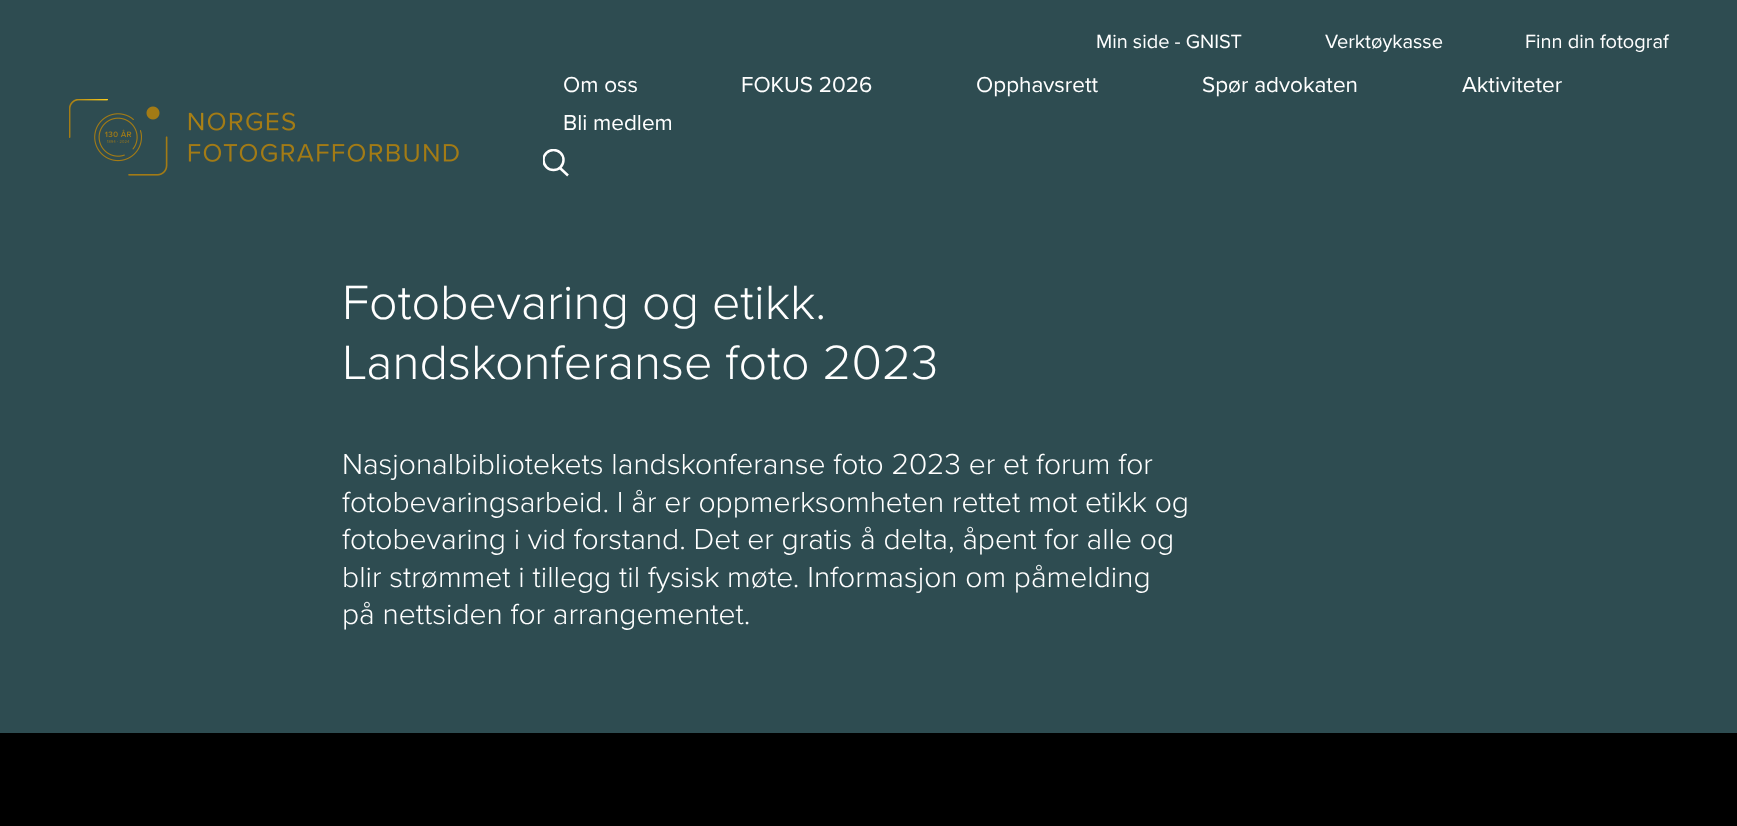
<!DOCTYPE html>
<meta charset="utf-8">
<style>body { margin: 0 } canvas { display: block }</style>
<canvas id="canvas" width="1737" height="826"></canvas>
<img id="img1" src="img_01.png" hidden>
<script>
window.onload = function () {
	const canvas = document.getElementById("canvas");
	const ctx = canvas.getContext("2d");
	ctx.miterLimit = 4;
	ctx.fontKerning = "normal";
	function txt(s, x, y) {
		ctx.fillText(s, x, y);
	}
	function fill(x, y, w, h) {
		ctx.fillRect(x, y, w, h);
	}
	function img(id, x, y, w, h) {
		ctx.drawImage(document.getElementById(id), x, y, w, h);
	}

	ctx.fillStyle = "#000000";
	fill(0, 0, 1737, 826);
	ctx.fillStyle = "#2E4C51";
	fill(0, 0, 1737, 733);
	img("img1", 69, 99, 390, 77);
	ctx.save();
	ctx.beginPath();
	ctx.rect(543, 149, 26, 27);
	ctx.clip();
	ctx.beginPath();
	ctx.arc(553.5, 160, 10, 0, Math.PI * 2);
	ctx.strokeStyle = "#FFFFFF";
	ctx.lineWidth = 2.5;
	ctx.stroke();
	ctx.restore();
	ctx.beginPath();
	ctx.moveTo(560, 168);
	ctx.lineTo(568, 175.5);
	ctx.strokeStyle = "#FFFFFF";
	ctx.lineWidth = 2.5;
	ctx.stroke();
	ctx.font = "20px Proxima Nova";
	ctx.fillStyle = "#FFFFFF";
	txt("Min side - GNIST", 1096, 48);
	txt("Verktøykasse", 1325, 48);
	txt("Finn din fotograf", 1525, 48);
	ctx.font = "22.5px Proxima Nova";
	txt("Om oss", 563, 92);
	txt("FOKUS 2026", 741, 92);
	txt("Opphavsrett", 976, 92);
	txt("Spør advokaten", 1202, 92);
	txt("Aktiviteter", 1462, 92);
	txt("Bli medlem", 563, 130);
	ctx.font = "300 50px Proxima Nova";
	txt("Fotobevaring og etikk.", 342, 319);
	txt("Landskonferanse foto 2023", 342, 379);
	ctx.font = "300 30px Proxima Nova";
	txt("Nasjonalbibliotekets landskonferanse foto 2023 er et forum for", 342, 474);
	txt("fotobevaringsarbeid. I år er oppmerksomheten rettet mot etikk og", 342, 512);
	txt("fotobevaring i vid forstand. Det er gratis å delta, åpent for alle og", 342, 549);
	txt("blir strømmet i tillegg til fysisk møte. Informasjon om påmelding", 342, 587);
	txt("på nettsiden for arrangementet.", 342, 624);
};
</script>
